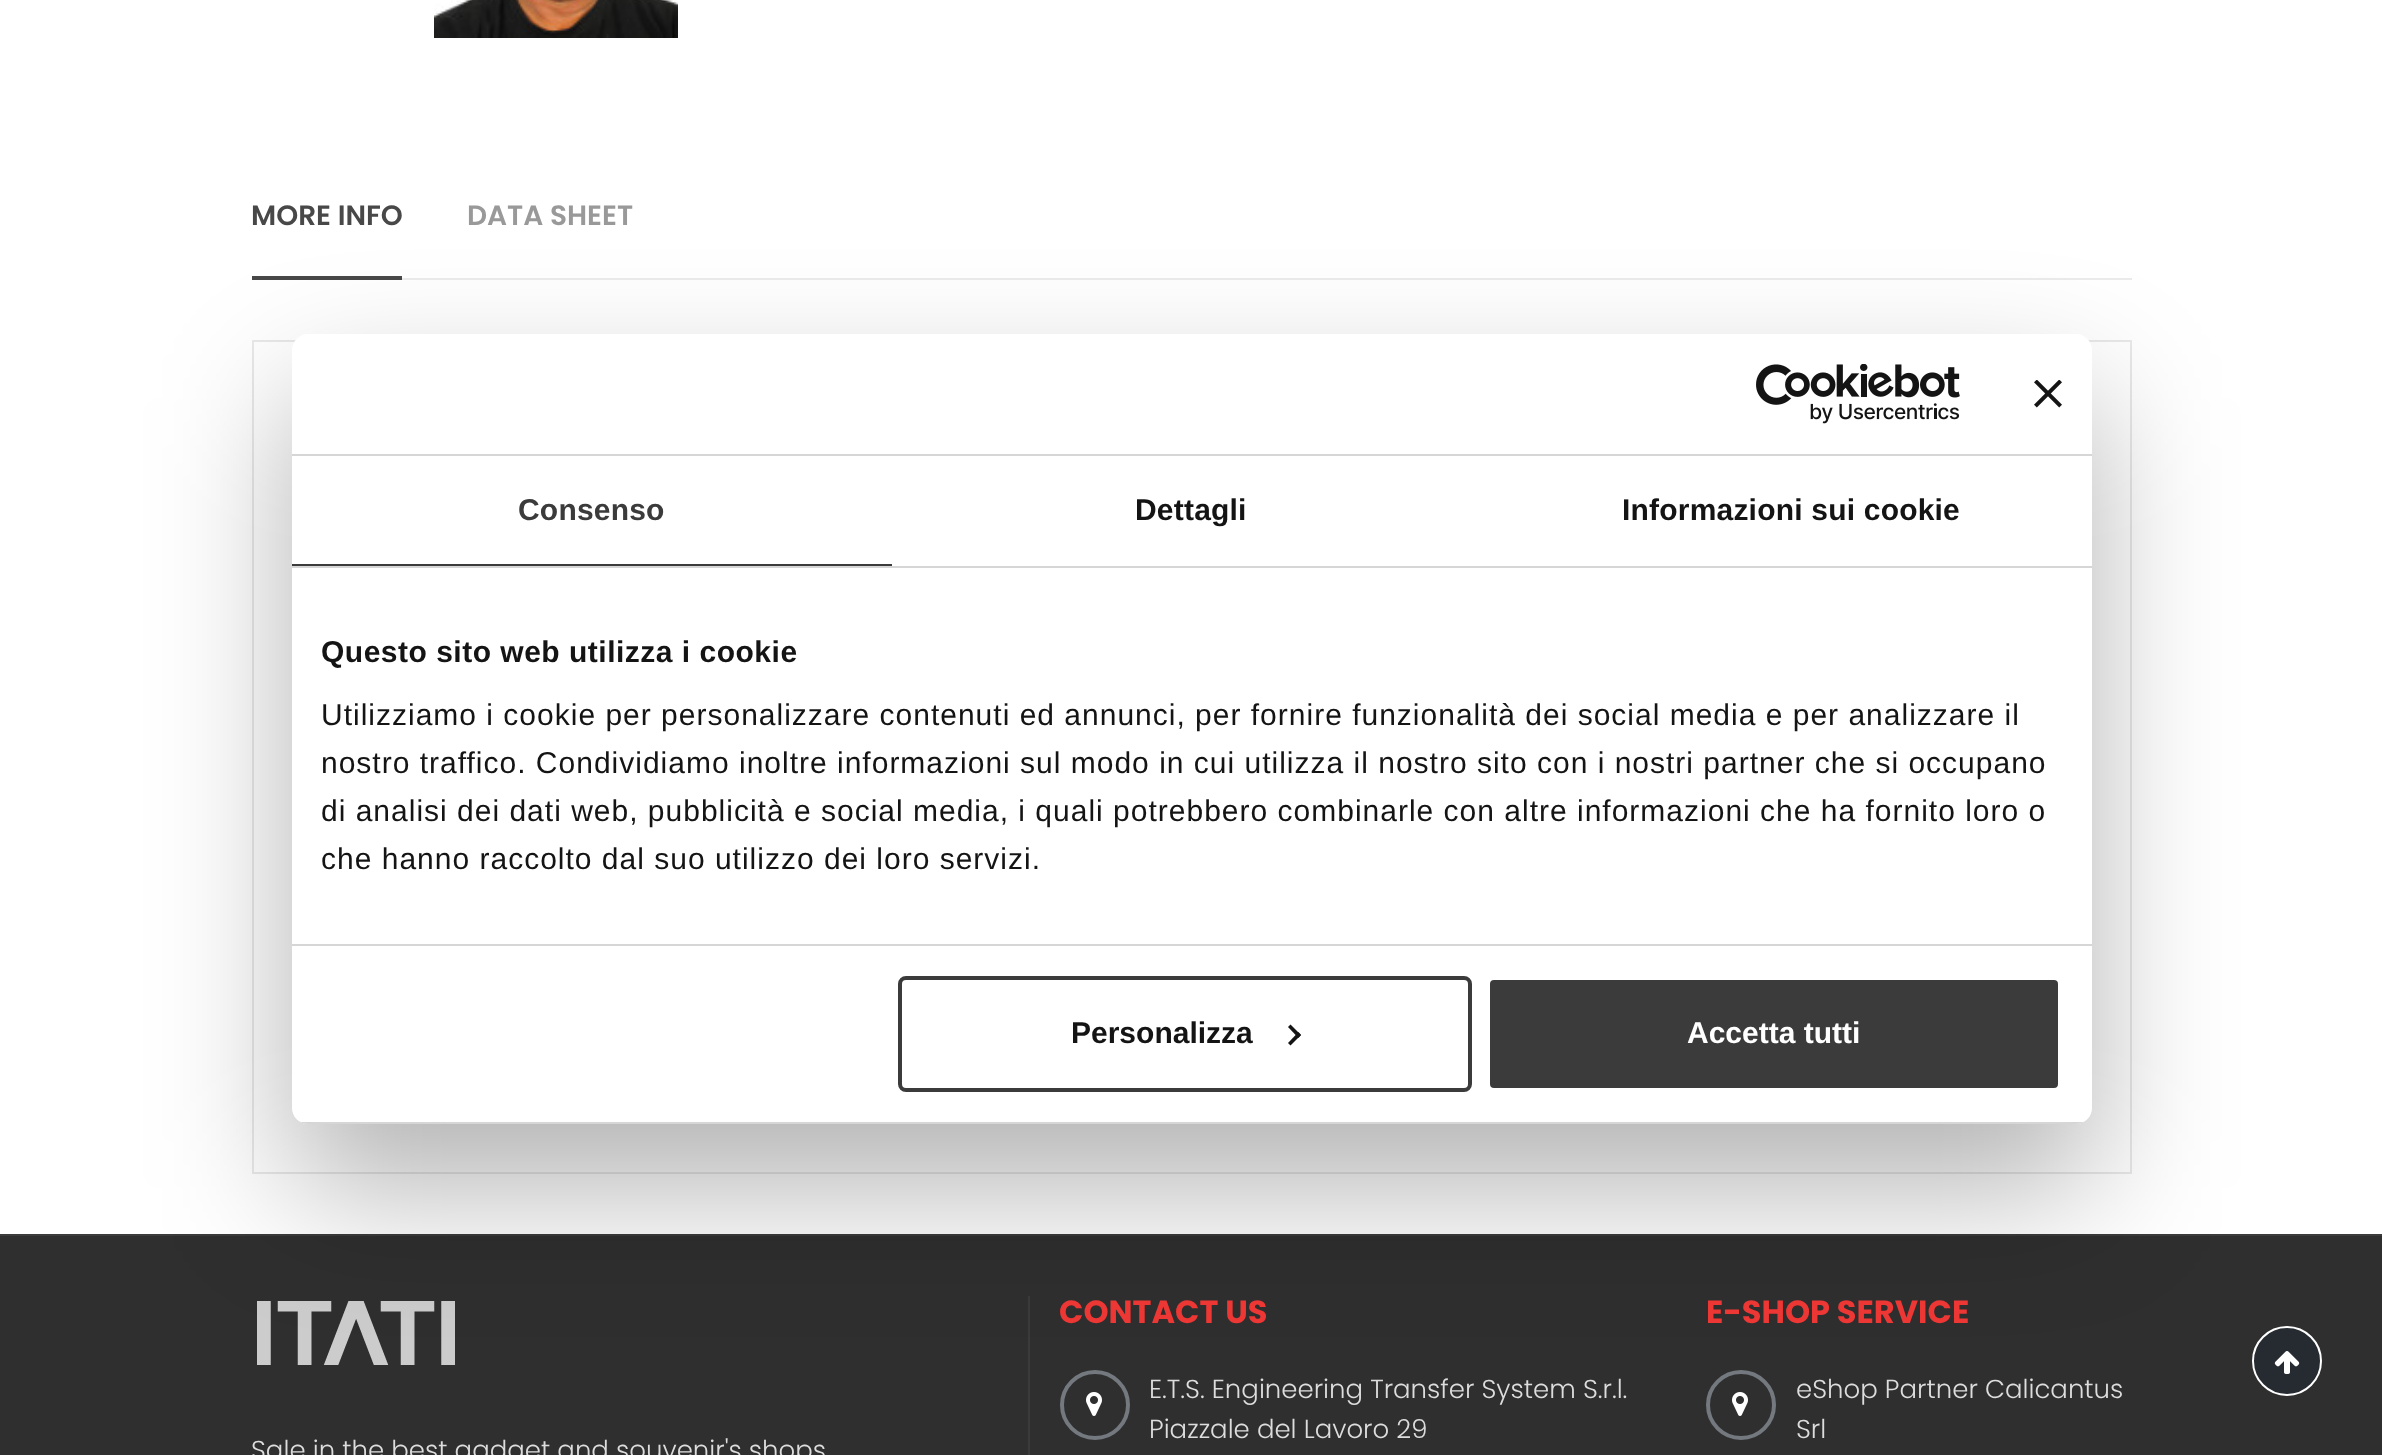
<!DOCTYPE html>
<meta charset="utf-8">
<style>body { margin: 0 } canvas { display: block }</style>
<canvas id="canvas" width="2382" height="1455"></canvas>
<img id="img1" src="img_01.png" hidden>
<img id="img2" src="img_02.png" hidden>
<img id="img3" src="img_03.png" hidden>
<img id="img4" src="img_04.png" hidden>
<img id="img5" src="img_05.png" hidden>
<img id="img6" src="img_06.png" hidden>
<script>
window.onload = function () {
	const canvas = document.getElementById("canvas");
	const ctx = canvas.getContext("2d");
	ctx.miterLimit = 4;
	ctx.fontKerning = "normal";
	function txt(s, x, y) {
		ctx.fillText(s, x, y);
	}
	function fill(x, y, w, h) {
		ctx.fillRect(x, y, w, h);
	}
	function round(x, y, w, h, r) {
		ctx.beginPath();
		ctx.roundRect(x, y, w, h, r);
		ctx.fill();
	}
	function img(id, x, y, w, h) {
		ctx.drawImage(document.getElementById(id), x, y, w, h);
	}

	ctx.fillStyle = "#FFFFFF";
	fill(0, 0, 2382, 1455);
	img("img1", 434, 0, 244, 38);
	ctx.fillStyle = "#EBEBEB";
	fill(402, 278, 1730, 2);
	ctx.fillStyle = "#484848";
	fill(252, 276, 150, 4);
	ctx.strokeStyle = "#E9E9E9";
	ctx.lineWidth = 2;
	ctx.strokeRect(253, 341, 1878, 832);
	ctx.fillStyle = "#2F2F2F";
	fill(0, 1236, 2382, 219);
	ctx.fillStyle = "#3B3B3B";
	fill(0, 1234, 2382, 2);
	ctx.beginPath();
	ctx.arc(1095, 1405, 33, 0, Math.PI * 2);
	ctx.strokeStyle = "#74797F";
	ctx.lineWidth = 4;
	ctx.stroke();
	img("img2", 1086, 1392, 16, 24);
	ctx.beginPath();
	ctx.arc(1741, 1405, 33, 0, Math.PI * 2);
	ctx.stroke();
	img("img2", 1732, 1392, 16, 24);
	fill(1028, 1296, 2, 159);
	img("img3", 257, 1301, 198, 64);
	ctx.fillStyle = "rgba(0, 0, 0, 0.3)";
	ctx.filter = "blur(68px)";
	ctx.beginPath();
	ctx.roundRect(292, 398, 1800, 790, 16);
	ctx.fill();
	ctx.filter = "none";
	ctx.fillStyle = "#FFFFFF";
	round(292, 334, 1800, 790, 16);
	ctx.fillStyle = "#D6D6D6";
	fill(292, 454, 1800, 2);
	img("img4", 1756, 364, 204, 60);
	img("img5", 2034, 380, 28, 28);
	fill(292, 566, 1800, 2);
	ctx.fillStyle = "#3B3B3B";
	fill(292, 564, 600, 2);
	ctx.fillStyle = "#D6D6D6";
	fill(292, 944, 1800, 2);
	ctx.save();
	ctx.beginPath();
	ctx.roundRect(292, 334, 1800, 790, 16);
	ctx.clip();
	fill(292, 1122, 1800, 2);
	ctx.restore();
	ctx.beginPath();
	ctx.roundRect(900, 978, 570, 112, 6);
	ctx.strokeStyle = "#3B3B3B";
	ctx.stroke();
	ctx.fillStyle = "#141414";
	ctx.beginPath();
	ctx.moveTo(1290.5, 1024.5);
	ctx.lineTo(1301, 1035);
	ctx.lineTo(1298.5, 1038);
	ctx.lineTo(1288, 1027);
	ctx.closePath();
	ctx.fill();
	ctx.beginPath();
	ctx.moveTo(1298.5, 1032);
	ctx.lineTo(1301, 1035);
	ctx.lineTo(1290.5, 1045.5);
	ctx.lineTo(1288, 1043);
	ctx.closePath();
	ctx.fill();
	ctx.fillStyle = "#3B3B3B";
	ctx.beginPath();
	ctx.roundRect(1488, 978, 572, 112, 6);
	ctx.fill();
	ctx.strokeStyle = "#FFFFFF";
	ctx.stroke();
	ctx.fillStyle = "#262B32";
	ctx.beginPath();
	ctx.arc(2287, 1361, 34, 0, Math.PI * 2);
	ctx.fill();
	ctx.lineWidth = 2;
	ctx.stroke();
	img("img6", 2274, 1351, 26, 23);
	ctx.font = "600 28px Poppins";
	ctx.fillStyle = "#484848";
	txt("MORE INFO", 251, 225);
	ctx.fillStyle = "#999999";
	txt("DATA SHEET", 467, 225);
	ctx.font = "bold 32px Poppins";
	ctx.fillStyle = "#ED3734";
	txt("CONTACT US", 1059, 1323);
	ctx.font = "300 26px Poppins";
	ctx.fillStyle = "#DDDDDD";
	txt("E.T.S. Engineering Transfer System S.r.l.", 1149, 1398);
	txt("Piazzale del Lavoro 29", 1149, 1438);
	ctx.font = "bold 32px Poppins";
	ctx.fillStyle = "#ED3734";
	txt("E-SHOP SERVICE", 1706, 1323);
	ctx.font = "300 26px Poppins";
	ctx.fillStyle = "#DDDDDD";
	txt("eShop Partner Calicantus", 1796, 1398);
	txt("Srl", 1796, 1438);
	txt("Sale in the best gadget and souvenir's shops", 251, 1459);
	ctx.letterSpacing = "0.2px";
	ctx.font = "bold 30px Liberation Sans";
	ctx.fillStyle = "#3B3B3B";
	txt("Consenso", 518, 520);
	ctx.fillStyle = "#141414";
	txt("Dettagli", 1135, 520);
	txt("Informazioni sui cookie", 1622, 520);
	ctx.letterSpacing = "0.5px";
	txt("Questo sito web utilizza i cookie", 321, 662);
	ctx.letterSpacing = "1px";
	ctx.font = "30px Liberation Sans";
	txt("Utilizziamo i cookie per personalizzare contenuti ed annunci, per fornire funzionalità dei social media e per analizzare il", 321, 725);
	txt("nostro traffico. Condividiamo inoltre informazioni sul modo in cui utilizza il nostro sito con i nostri partner che si occupano", 321, 773);
	txt("di analisi dei dati web, pubblicità e social media, i quali potrebbero combinarle con altre informazioni che ha fornito loro o", 321, 821);
	txt("che hanno raccolto dal suo utilizzo dei loro servizi.", 321, 869);
	ctx.letterSpacing = "0px";
	ctx.font = "bold 30px Liberation Sans";
	txt("Personalizza", 1071, 1043);
	ctx.fillStyle = "#FFFFFF";
	txt("Accetta tutti", 1687, 1043);
};
</script>
